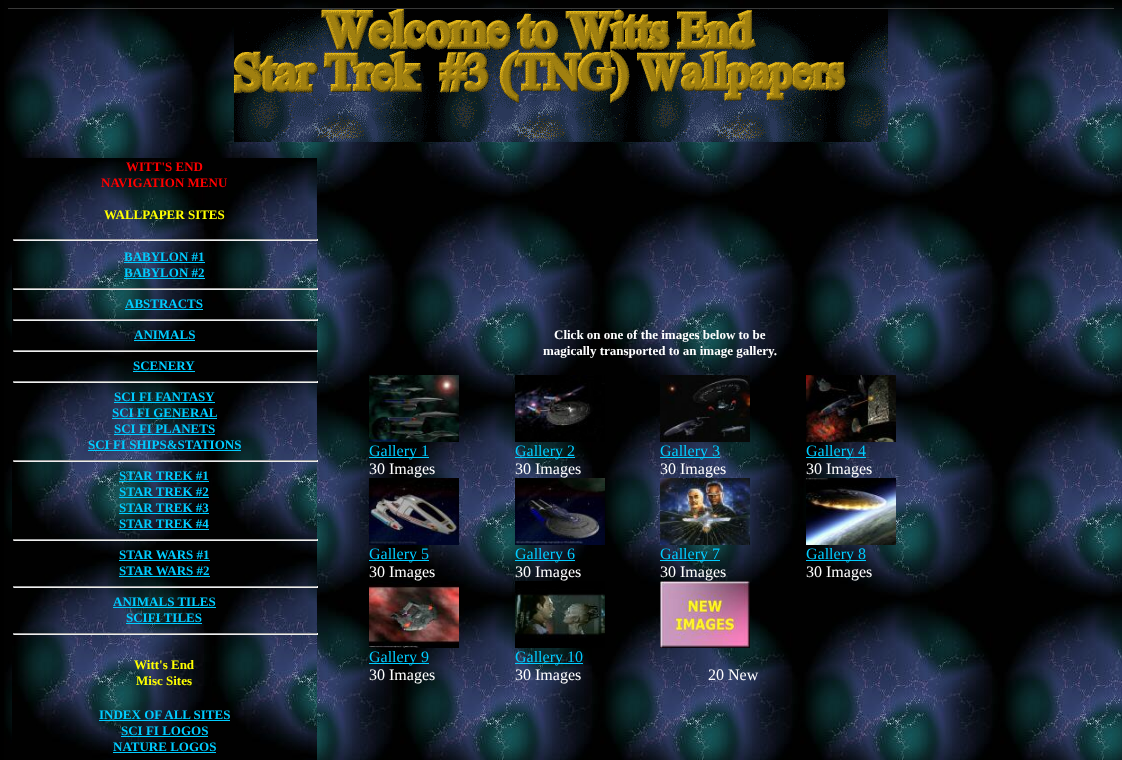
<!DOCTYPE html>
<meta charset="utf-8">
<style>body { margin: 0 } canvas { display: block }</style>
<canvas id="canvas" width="1122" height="760"></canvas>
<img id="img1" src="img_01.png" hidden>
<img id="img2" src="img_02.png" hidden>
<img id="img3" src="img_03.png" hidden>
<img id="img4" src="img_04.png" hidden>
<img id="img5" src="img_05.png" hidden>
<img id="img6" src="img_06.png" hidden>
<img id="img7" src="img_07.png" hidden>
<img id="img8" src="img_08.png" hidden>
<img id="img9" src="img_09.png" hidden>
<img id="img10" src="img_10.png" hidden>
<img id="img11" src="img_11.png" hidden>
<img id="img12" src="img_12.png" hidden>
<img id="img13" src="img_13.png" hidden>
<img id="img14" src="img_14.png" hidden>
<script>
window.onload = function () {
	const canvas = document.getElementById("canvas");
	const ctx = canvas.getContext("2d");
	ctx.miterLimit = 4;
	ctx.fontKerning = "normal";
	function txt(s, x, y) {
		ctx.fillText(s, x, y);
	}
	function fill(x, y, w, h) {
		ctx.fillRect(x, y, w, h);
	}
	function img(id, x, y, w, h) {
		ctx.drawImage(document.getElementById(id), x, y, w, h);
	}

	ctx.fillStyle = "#000000";
	fill(0, 0, 1122, 760);
	img("img1", 4, 0, 1118, 760);
	ctx.fillStyle = "#393939";
	fill(8, 8, 1106, 1);
	img("img2", 234, 9, 654, 133);
	img("img3", 12, 158, 305, 602);
	ctx.fillStyle = "#9F9F9F";
	fill(13, 239, 305, 1);
	ctx.fillStyle = "#EEEEEE";
	fill(317, 239, 1, 2);
	fill(13, 240, 305, 1);
	ctx.fillStyle = "#9F9F9F";
	fill(13, 239, 1, 2);
	ctx.fillStyle = "#00CCFF";
	fill(124, 262, 81, 1);
	fill(124, 278, 81, 1);
	ctx.fillStyle = "#9F9F9F";
	fill(13, 288, 305, 1);
	ctx.fillStyle = "#EEEEEE";
	fill(317, 288, 1, 2);
	fill(13, 289, 305, 1);
	ctx.fillStyle = "#9F9F9F";
	fill(13, 288, 1, 2);
	ctx.fillStyle = "#00CCFF";
	fill(125, 309, 78, 1);
	ctx.fillStyle = "#9F9F9F";
	fill(13, 319, 305, 1);
	ctx.fillStyle = "#EEEEEE";
	fill(317, 319, 1, 2);
	fill(13, 320, 305, 1);
	ctx.fillStyle = "#9F9F9F";
	fill(13, 319, 1, 2);
	ctx.fillStyle = "#00CCFF";
	fill(134, 340, 61, 1);
	ctx.fillStyle = "#9F9F9F";
	fill(13, 350, 305, 1);
	ctx.fillStyle = "#EEEEEE";
	fill(317, 350, 1, 2);
	fill(13, 351, 305, 1);
	ctx.fillStyle = "#9F9F9F";
	fill(13, 350, 1, 2);
	ctx.fillStyle = "#00CCFF";
	fill(133, 371, 62, 1);
	ctx.fillStyle = "#9F9F9F";
	fill(13, 381, 305, 1);
	ctx.fillStyle = "#EEEEEE";
	fill(317, 381, 1, 2);
	fill(13, 382, 305, 1);
	ctx.fillStyle = "#9F9F9F";
	fill(13, 381, 1, 2);
	ctx.fillStyle = "#00CCFF";
	fill(114, 402, 101, 1);
	fill(112, 418, 105, 1);
	fill(114, 434, 101, 1);
	fill(88, 450, 153, 1);
	ctx.fillStyle = "#9F9F9F";
	fill(13, 460, 305, 1);
	ctx.fillStyle = "#EEEEEE";
	fill(317, 460, 1, 2);
	fill(13, 461, 305, 1);
	ctx.fillStyle = "#9F9F9F";
	fill(13, 460, 1, 2);
	ctx.fillStyle = "#00CCFF";
	fill(119, 481, 90, 1);
	fill(119, 497, 90, 1);
	fill(119, 513, 90, 1);
	fill(119, 529, 90, 1);
	ctx.fillStyle = "#9F9F9F";
	fill(13, 539, 305, 1);
	ctx.fillStyle = "#EEEEEE";
	fill(317, 539, 1, 2);
	fill(13, 540, 305, 1);
	ctx.fillStyle = "#9F9F9F";
	fill(13, 539, 1, 2);
	ctx.fillStyle = "#00CCFF";
	fill(119, 560, 91, 1);
	fill(119, 576, 91, 1);
	ctx.fillStyle = "#9F9F9F";
	fill(13, 586, 305, 1);
	ctx.fillStyle = "#EEEEEE";
	fill(317, 586, 1, 2);
	fill(13, 587, 305, 1);
	ctx.fillStyle = "#9F9F9F";
	fill(13, 586, 1, 2);
	ctx.fillStyle = "#00CCFF";
	fill(113, 607, 103, 1);
	fill(126, 623, 76, 1);
	ctx.fillStyle = "#9F9F9F";
	fill(13, 633, 305, 1);
	ctx.fillStyle = "#EEEEEE";
	fill(317, 633, 1, 2);
	fill(13, 634, 305, 1);
	ctx.fillStyle = "#9F9F9F";
	fill(13, 633, 1, 2);
	ctx.fillStyle = "#00CCFF";
	fill(99, 720, 131, 1);
	fill(121, 736, 87, 1);
	fill(113, 752, 103, 1);
	img("img4", 369, 375, 90, 67);
	fill(369, 457, 60, 1);
	img("img5", 515, 375, 90, 67);
	fill(515, 457, 60, 1);
	img("img6", 660, 375, 90, 67);
	fill(660, 457, 60, 1);
	img("img7", 806, 375, 90, 67);
	fill(806, 457, 60, 1);
	img("img8", 369, 478, 90, 67);
	fill(369, 560, 60, 1);
	img("img9", 515, 478, 90, 67);
	fill(515, 560, 60, 1);
	img("img10", 660, 478, 90, 67);
	fill(660, 560, 60, 1);
	img("img11", 806, 478, 90, 67);
	fill(806, 560, 60, 1);
	img("img12", 369, 581, 90, 67);
	fill(369, 663, 60, 1);
	img("img13", 515, 581, 90, 67);
	fill(515, 663, 68, 1);
	img("img14", 660, 581, 90, 67);
	ctx.font = "bold 13px Liberation Serif";
	ctx.fillStyle = "#FF0000";
	txt("WITT'S END", 126, 171);
	txt("NAVIGATION MENU", 101, 187);
	ctx.fillStyle = "#FFFF00";
	txt("WALLPAPER SITES", 104, 219);
	ctx.fillStyle = "#00CCFF";
	txt("BABYLON #1", 124, 261);
	txt("BABYLON #2", 124, 277);
	txt("ABSTRACTS", 125, 308);
	txt("ANIMALS", 134, 339);
	txt("SCENERY", 133, 370);
	txt("SCI FI FANTASY", 114, 401);
	txt("SCI FI GENERAL", 112, 417);
	txt("SCI FI PLANETS", 114, 433);
	txt("SCI FI SHIPS&STATIONS", 88, 449);
	txt("STAR TREK #1", 119, 480);
	txt("STAR TREK #2", 119, 496);
	txt("STAR TREK #3", 119, 512);
	txt("STAR TREK #4", 119, 528);
	txt("STAR WARS #1", 119, 559);
	txt("STAR WARS #2", 119, 575);
	txt("ANIMALS TILES", 113, 606);
	txt("SCIFI TILES", 126, 622);
	ctx.fillStyle = "#FFFF00";
	txt("Witt's End", 134, 669);
	txt("Misc Sites", 136, 685);
	ctx.fillStyle = "#00CCFF";
	txt("INDEX OF ALL SITES", 99, 719);
	txt("SCI FI LOGOS", 121, 735);
	txt("NATURE LOGOS", 113, 751);
	ctx.fillStyle = "#FFFFFF";
	txt("Click on one of the images below to be", 554, 339);
	txt("magically transported to an image gallery.", 543, 355);
	ctx.font = "16px Liberation Serif";
	ctx.fillStyle = "#00CCFF";
	txt("Gallery 1", 369, 456);
	ctx.fillStyle = "#FFFFFF";
	txt("30 Images", 369, 474);
	ctx.fillStyle = "#00CCFF";
	txt("Gallery 2", 515, 456);
	ctx.fillStyle = "#FFFFFF";
	txt("30 Images", 515, 474);
	ctx.fillStyle = "#00CCFF";
	txt("Gallery 3", 660, 456);
	ctx.fillStyle = "#FFFFFF";
	txt("30 Images", 660, 474);
	ctx.fillStyle = "#00CCFF";
	txt("Gallery 4", 806, 456);
	ctx.fillStyle = "#FFFFFF";
	txt("30 Images", 806, 474);
	ctx.fillStyle = "#00CCFF";
	txt("Gallery 5", 369, 559);
	ctx.fillStyle = "#FFFFFF";
	txt("30 Images", 369, 577);
	ctx.fillStyle = "#00CCFF";
	txt("Gallery 6", 515, 559);
	ctx.fillStyle = "#FFFFFF";
	txt("30 Images", 515, 577);
	ctx.fillStyle = "#00CCFF";
	txt("Gallery 7", 660, 559);
	ctx.fillStyle = "#FFFFFF";
	txt("30 Images", 660, 577);
	ctx.fillStyle = "#00CCFF";
	txt("Gallery 8", 806, 559);
	ctx.fillStyle = "#FFFFFF";
	txt("30 Images", 806, 577);
	ctx.fillStyle = "#00CCFF";
	txt("Gallery 9", 369, 662);
	ctx.fillStyle = "#FFFFFF";
	txt("30 Images", 369, 680);
	ctx.fillStyle = "#00CCFF";
	txt("Gallery 10", 515, 662);
	ctx.fillStyle = "#FFFFFF";
	txt("30 Images", 515, 680);
	txt("20 New", 708, 680);
};
</script>
